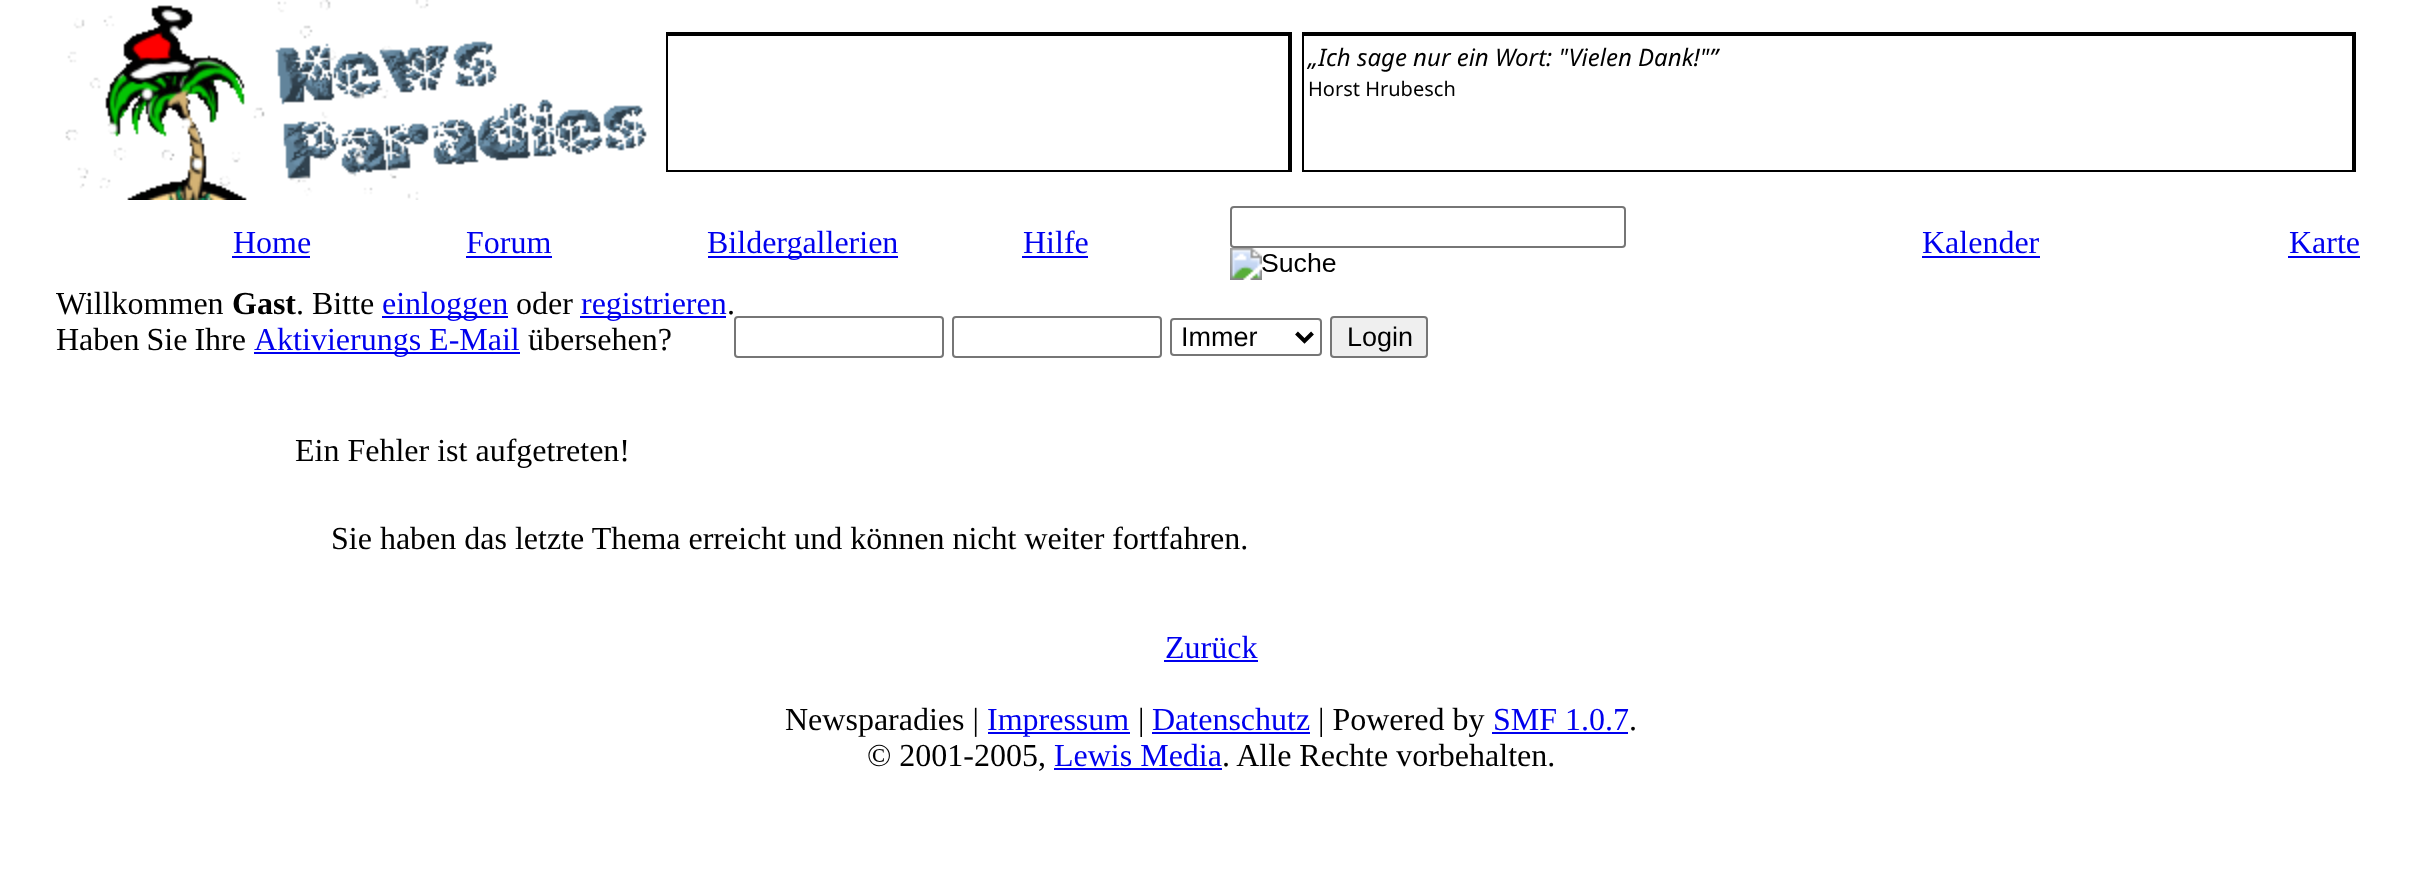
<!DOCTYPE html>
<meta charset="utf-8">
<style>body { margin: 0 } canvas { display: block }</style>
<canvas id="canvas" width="2421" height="895"></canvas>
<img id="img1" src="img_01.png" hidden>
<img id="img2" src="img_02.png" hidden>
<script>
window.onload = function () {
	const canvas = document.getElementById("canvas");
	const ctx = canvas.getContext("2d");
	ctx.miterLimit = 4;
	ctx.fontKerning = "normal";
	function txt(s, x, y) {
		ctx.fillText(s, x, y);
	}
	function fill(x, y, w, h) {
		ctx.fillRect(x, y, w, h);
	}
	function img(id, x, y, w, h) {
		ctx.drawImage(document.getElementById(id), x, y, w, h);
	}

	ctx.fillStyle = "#FFFFFF";
	fill(0, 0, 2421, 895);
	img("img1", 65, 0, 582, 200);
	ctx.fillStyle = "#000000";
	fill(666, 32, 626, 4);
	fill(1288, 32, 4, 140);
	fill(666, 170, 626, 2);
	fill(666, 32, 2, 140);
	fill(1302, 32, 1054, 4);
	fill(2352, 32, 4, 140);
	fill(1302, 170, 1054, 2);
	fill(1302, 32, 2, 140);
	ctx.fillStyle = "#0000EE";
	fill(232, 256, 78, 2);
	fill(466, 256, 86, 2);
	fill(708, 256, 190, 2);
	fill(1022, 256, 66, 2);
	ctx.beginPath();
	ctx.roundRect(1231, 207, 394, 40, 3);
	ctx.strokeStyle = "#767676";
	ctx.lineWidth = 2;
	ctx.stroke();
	img("img2", 1230, 248, 106, 32);
	fill(1922, 256, 118, 2);
	fill(2288, 256, 72, 2);
	fill(382, 316, 126, 2);
	fill(580, 316, 146, 2);
	fill(254, 352, 266, 2);
	ctx.beginPath();
	ctx.roundRect(735, 317, 208, 40, 3);
	ctx.stroke();
	ctx.beginPath();
	ctx.roundRect(953, 317, 208, 40, 3);
	ctx.stroke();
	ctx.beginPath();
	ctx.roundRect(1171, 319, 150, 36, 3);
	ctx.stroke();
	ctx.beginPath();
	ctx.moveTo(1296.5, 333);
	ctx.lineTo(1304.5, 341);
	ctx.lineTo(1312.5, 333);
	ctx.strokeStyle = "#000000";
	ctx.lineWidth = 4;
	ctx.stroke();
	ctx.fillStyle = "#EFEFEF";
	ctx.beginPath();
	ctx.roundRect(1331, 317, 96, 40, 3);
	ctx.fill();
	ctx.strokeStyle = "#767676";
	ctx.lineWidth = 2;
	ctx.stroke();
	ctx.fillStyle = "#0000EE";
	fill(1164, 660, 94, 2);
	fill(988, 732, 142, 2);
	fill(1152, 732, 158, 2);
	fill(1492, 732, 136, 2);
	fill(1054, 768, 168, 2);
	ctx.font = "italic 24px Noto Sans";
	ctx.fillStyle = "#000000";
	txt("„Ich sage nur ein Wort: \"Vielen Dank!\"”", 1308, 66);
	ctx.font = "20px Noto Sans";
	txt("Horst Hrubesch", 1308, 96);
	ctx.font = "32px Liberation Serif";
	ctx.fillStyle = "#0000EE";
	txt("Home", 233, 253);
	txt("Forum", 466, 253);
	txt("Bildergallerien", 707, 253);
	txt("Hilfe", 1023, 253);
	txt("Kalender", 1922, 253);
	txt("Karte", 2289, 253);
	ctx.fillStyle = "#000000";
	txt("Willkommen", 56, 314);
	ctx.font = "bold 32px Liberation Serif";
	txt("Gast", 232, 314);
	ctx.font = "32px Liberation Serif";
	txt(". Bitte", 296, 314);
	ctx.fillStyle = "#0000EE";
	txt("einloggen", 382, 314);
	ctx.fillStyle = "#000000";
	txt("oder", 516, 314);
	ctx.fillStyle = "#0000EE";
	txt("registrieren", 581, 314);
	ctx.fillStyle = "#000000";
	txt(".", 727, 314);
	ctx.wordSpacing = "-1px";
	txt("Haben Sie Ihre", 56, 350);
	ctx.wordSpacing = "0px";
	ctx.fillStyle = "#0000EE";
	txt("Aktivierungs E-Mail", 254, 350);
	ctx.fillStyle = "#000000";
	txt("übersehen?", 528, 350);
	ctx.font = "27px Liberation Sans";
	txt("Immer", 1181, 346);
	txt("Login", 1347, 346);
	ctx.font = "32px Liberation Serif";
	txt("Ein Fehler ist aufgetreten!", 295, 461);
	txt("Sie haben das letzte Thema erreicht und können nicht weiter fortfahren.", 331, 549);
	ctx.fillStyle = "#0000EE";
	txt("Zurück", 1165, 658);
	ctx.fillStyle = "#000000";
	txt("Newsparadies |", 785, 730);
	ctx.fillStyle = "#0000EE";
	txt("Impressum", 987, 730);
	ctx.fillStyle = "#000000";
	txt("|", 1138, 730);
	ctx.fillStyle = "#0000EE";
	txt("Datenschutz", 1152, 730);
	ctx.fillStyle = "#000000";
	txt("| Powered by", 1318, 730);
	ctx.fillStyle = "#0000EE";
	txt("SMF 1.0.7", 1493, 730);
	ctx.fillStyle = "#000000";
	txt(".", 1629, 730);
	txt("© 2001-2005,", 867, 766);
	ctx.fillStyle = "#0000EE";
	txt("Lewis Media", 1054, 766);
	ctx.fillStyle = "#000000";
	txt(". Alle Rechte vorbehalten.", 1222, 766);
};
</script>
